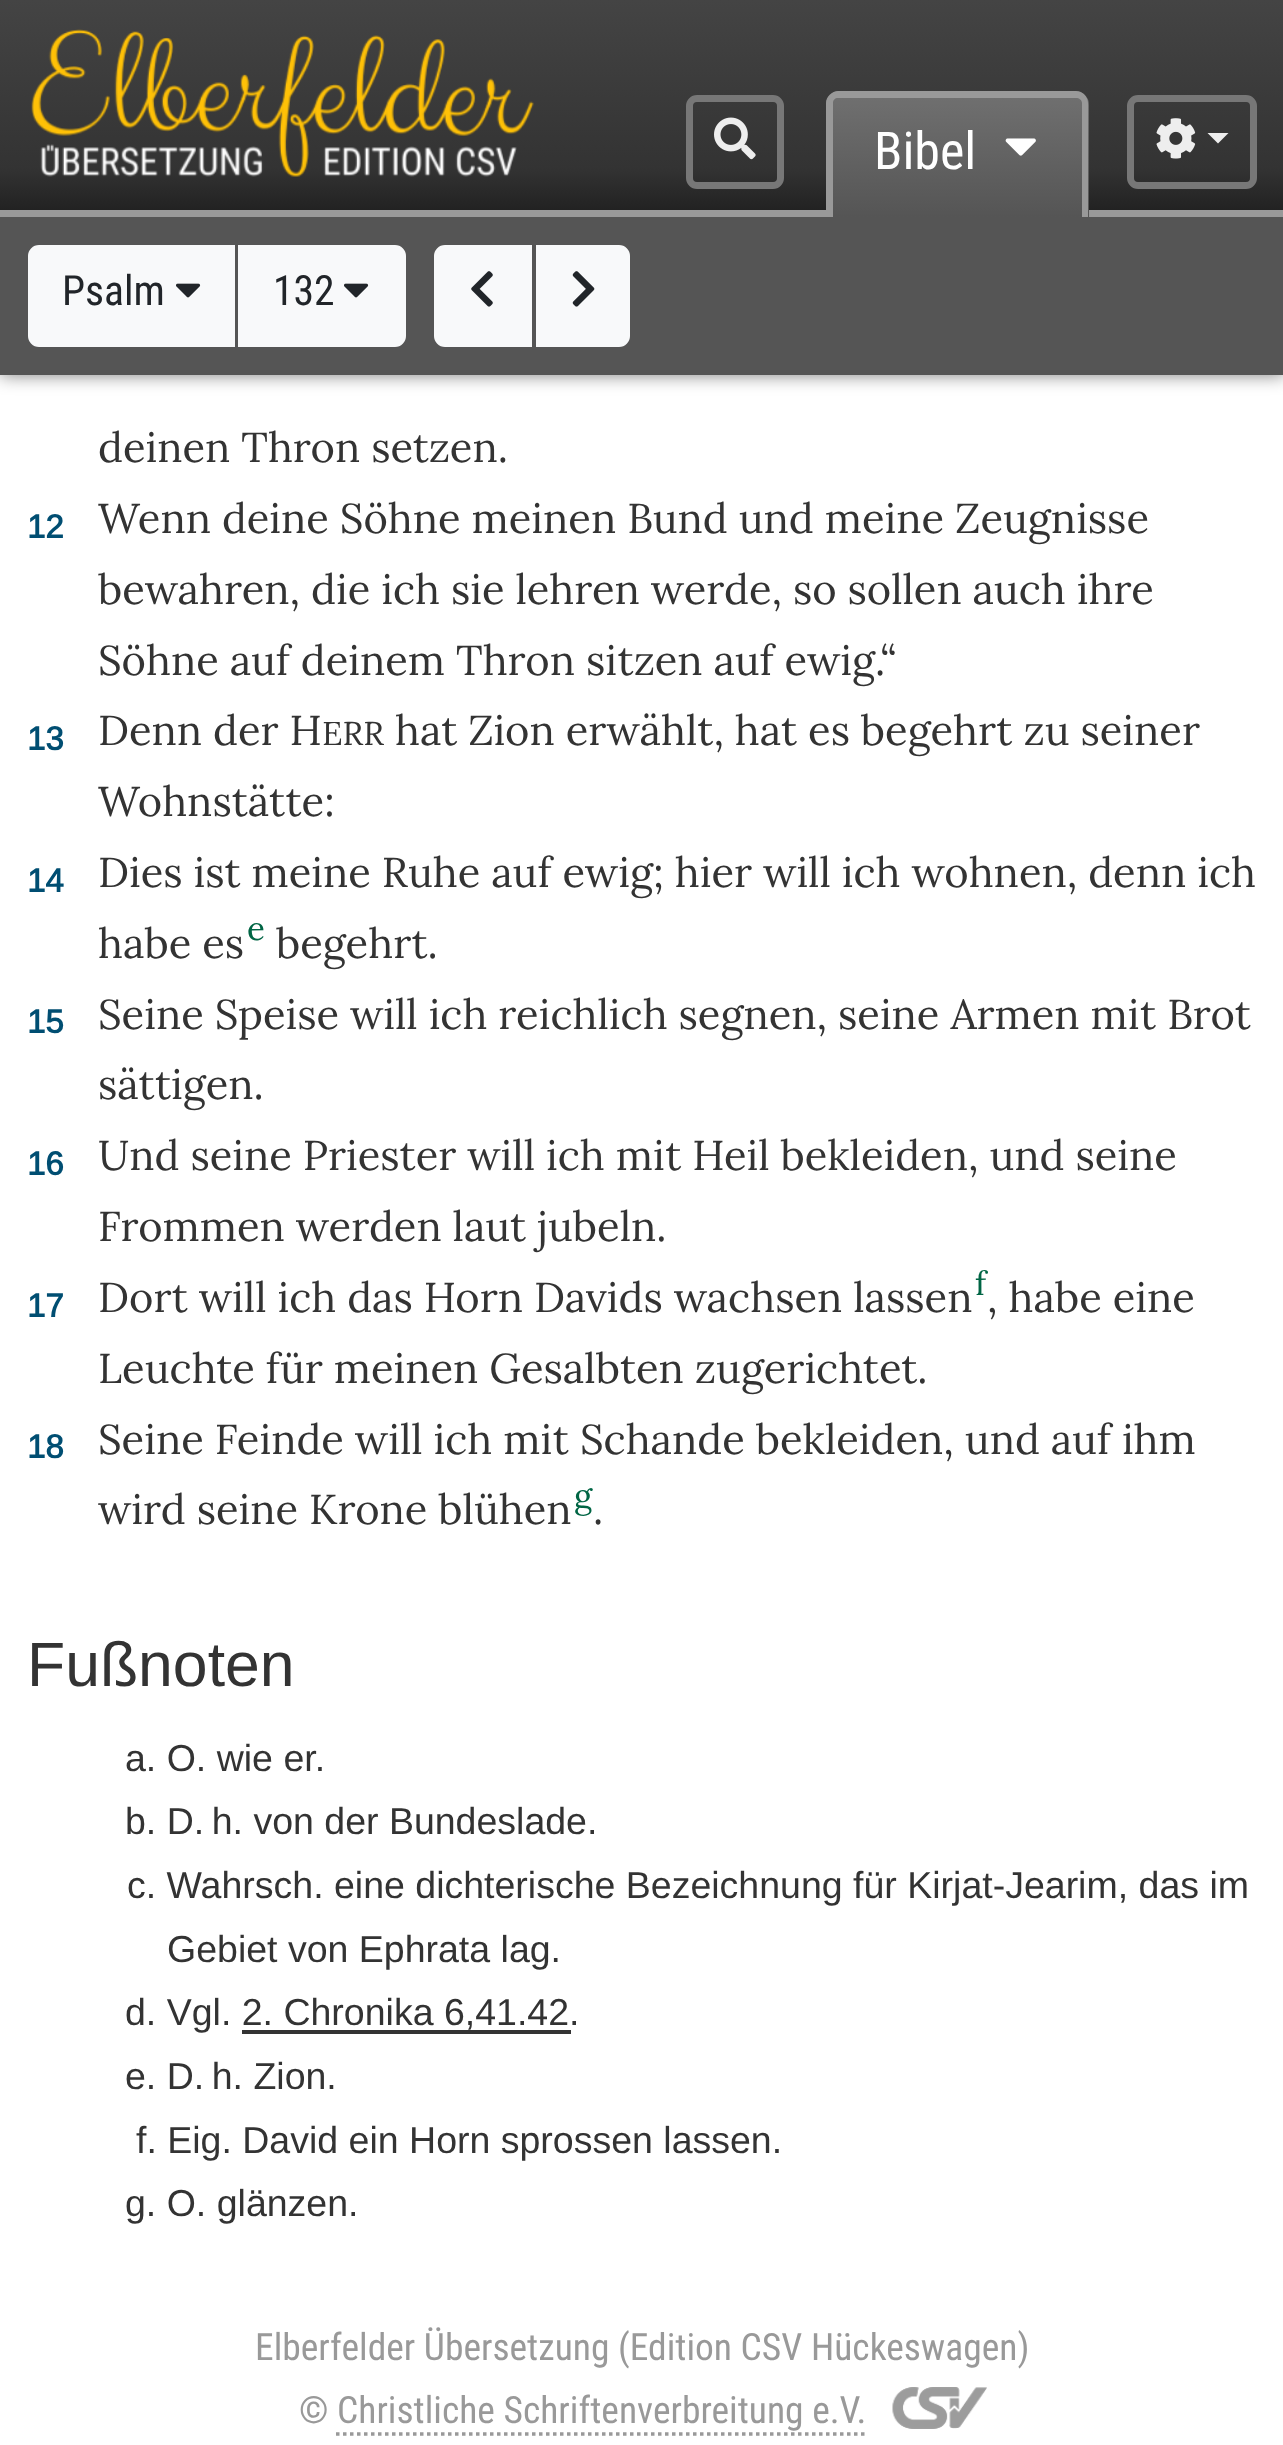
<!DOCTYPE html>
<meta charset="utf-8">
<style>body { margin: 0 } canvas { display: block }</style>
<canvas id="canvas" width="1283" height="2445"></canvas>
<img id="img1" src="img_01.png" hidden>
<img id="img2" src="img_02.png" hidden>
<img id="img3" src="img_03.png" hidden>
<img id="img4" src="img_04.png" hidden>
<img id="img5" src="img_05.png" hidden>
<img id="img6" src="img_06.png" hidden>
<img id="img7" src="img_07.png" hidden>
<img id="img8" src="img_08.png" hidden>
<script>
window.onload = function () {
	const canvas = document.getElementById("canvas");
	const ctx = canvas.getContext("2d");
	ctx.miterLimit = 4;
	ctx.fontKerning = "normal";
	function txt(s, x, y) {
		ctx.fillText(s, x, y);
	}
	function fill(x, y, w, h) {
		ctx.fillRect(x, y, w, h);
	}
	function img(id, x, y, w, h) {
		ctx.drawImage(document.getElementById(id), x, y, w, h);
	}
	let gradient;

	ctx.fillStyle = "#FFFFFF";
	fill(0, 0, 1283, 2445);
	ctx.filter = "blur(21px)";
	ctx.beginPath();
	ctx.rect(0, 252, 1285, 165);
	ctx.fill();
	ctx.filter = "none";
	ctx.fillStyle = "rgba(0, 0, 0, 0.5)";
	ctx.filter = "blur(9px)";
	ctx.beginPath();
	ctx.rect(0, 210, 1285, 165);
	ctx.fill();
	ctx.filter = "none";
	gradient = ctx.createLinearGradient(642, 210, 642, 0);
	gradient.addColorStop(0, "#222222");
	gradient.addColorStop(0.2, "#333333");
	gradient.addColorStop(1, "#444444");
	ctx.fillStyle = gradient;
	fill(0, 0, 1283, 210);
	img("img1", 31, 29, 503, 148);
	ctx.beginPath();
	ctx.roundRect(689.5, 98.5, 91, 87, 7.5);
	ctx.strokeStyle = "#777777";
	ctx.lineWidth = 7;
	ctx.stroke();
	img("img2", 714, 117, 42, 43);
	ctx.save();
	ctx.beginPath();
	ctx.roundRect(826, 91, 263, 126, [14, 14, 0, 0]);
	ctx.clip();
	gradient = ctx.createLinearGradient(957, -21, 957, 98);
	gradient.addColorStop(0, "#6F6F6F");
	gradient.addColorStop(1, "#555555");
	ctx.fillStyle = gradient;
	fill(826, 91, 263, 7);
	ctx.restore();
	ctx.fillStyle = "#999999";
	fill(0, 210, 1283, 7);
	ctx.save();
	ctx.beginPath();
	ctx.roundRect(826, 91, 263, 126, [14, 14, 0, 0]);
	ctx.clip();
	gradient = ctx.createLinearGradient(957, 98, 957, 217);
	gradient.addColorStop(0, "#6F6F6F");
	gradient.addColorStop(1, "#555555");
	ctx.fillStyle = gradient;
	fill(826, 98, 263, 119);
	ctx.restore();
	ctx.beginPath();
	ctx.moveTo(838, 91);
	ctx.lineTo(1076, 91);
	ctx.bezierCurveTo(1083, 91, 1088, 97, 1088, 103);
	ctx.lineTo(1088, 217);
	ctx.lineTo(826, 217);
	ctx.lineTo(826, 103);
	ctx.bezierCurveTo(826, 97, 832, 91, 838, 91);
	ctx.closePath();
	ctx.moveTo(838, 98);
	ctx.lineTo(1076, 98);
	ctx.bezierCurveTo(1079, 98, 1082, 100, 1082, 103);
	ctx.lineTo(1082, 217);
	ctx.lineTo(833, 217);
	ctx.lineTo(833, 103);
	ctx.bezierCurveTo(833, 100, 835, 98, 838, 98);
	ctx.closePath();
	ctx.fill("evenodd");
	img("img3", 1005, 138, 31, 18);
	ctx.beginPath();
	ctx.roundRect(1130.5, 98.5, 123, 87, 7.5);
	ctx.stroke();
	img("img4", 1156, 118, 40, 41);
	ctx.fillStyle = "#EEEEEE";
	ctx.beginPath();
	ctx.moveTo(1207.5, 133);
	ctx.lineTo(1228.5, 133);
	ctx.lineTo(1218, 143.5);
	ctx.closePath();
	ctx.fill();
	ctx.fillStyle = "#555555";
	fill(0, 217, 1283, 158);
	ctx.fillStyle = "#F8F9FA";
	ctx.beginPath();
	ctx.roundRect(30, 247, 203, 98, [9, 0, 0, 9]);
	ctx.fill();
	ctx.strokeStyle = "#F8F9FA";
	ctx.lineWidth = 4;
	ctx.stroke();
	img("img5", 176, 283, 25, 15);
	ctx.beginPath();
	ctx.roundRect(240, 247, 164, 98, [0, 9, 9, 0]);
	ctx.fill();
	ctx.stroke();
	img("img5", 344, 283, 25, 15);
	ctx.beginPath();
	ctx.roundRect(436, 247, 94, 98, [9, 0, 0, 9]);
	ctx.fill();
	ctx.stroke();
	img("img6", 471, 271, 22, 36);
	ctx.beginPath();
	ctx.roundRect(538, 247, 90, 98, [0, 9, 9, 0]);
	ctx.fill();
	ctx.stroke();
	img("img7", 572, 271, 23, 36);
	ctx.fillStyle = "#333333";
	fill(242, 2030, 329, 4);
	img("img8", 892, 2387, 95, 42);
	ctx.beginPath();
	ctx.moveTo(336, 2434);
	ctx.lineTo(864.5, 2434);
	ctx.strokeStyle = "#999999";
	ctx.lineWidth = 3.5;
	ctx.setLineDash([3.5, 3.5]);
	ctx.stroke();
	ctx.font = "52px Roboto Condensed";
	ctx.fillStyle = "#FFFFFF";
	txt("Bibel", 874, 169);
	ctx.font = "41.65px Roboto Condensed";
	ctx.fillStyle = "#212529";
	txt("Psalm", 62, 305);
	txt("132", 273, 305);
	ctx.font = "41.65px Lora";
	ctx.fillStyle = "#333333";
	txt("deinen Thron setzen.", 98, 462);
	ctx.font = "bold 33px Arimo";
	ctx.fillStyle = "#004E72";
	txt("12", 27, 538);
	ctx.font = "41.65px Lora";
	ctx.fillStyle = "#333333";
	txt("Wenn deine Söhne meinen Bund und meine Zeugnisse", 98, 533);
	txt("bewahren, die ich sie lehren werde, so sollen auch ihre", 98, 604);
	txt("Söhne auf deinem Thron sitzen auf ewig.“", 98, 675);
	ctx.font = "bold 33px Arimo";
	ctx.fillStyle = "#004E72";
	txt("13", 27, 750);
	ctx.font = "41.65px Lora";
	ctx.fillStyle = "#333333";
	txt("Denn der H", 98, 745);
	ctx.font = "33px Lora";
	txt("ERR", 322, 745);
	ctx.font = "41.65px Lora";
	txt("hat Zion erwählt, hat es begehrt zu seiner", 395, 745);
	txt("Wohnstätte:", 98, 816);
	ctx.font = "bold 33px Arimo";
	ctx.fillStyle = "#004E72";
	txt("14", 27, 892);
	ctx.font = "41.65px Lora";
	ctx.fillStyle = "#333333";
	txt("Dies ist meine Ruhe auf ewig; hier will ich wohnen, denn ich", 98, 887);
	txt("habe es", 98, 958);
	ctx.font = "33px Lora";
	ctx.fillStyle = "#006544";
	txt("e", 247, 940);
	ctx.font = "41.65px Lora";
	ctx.fillStyle = "#333333";
	txt("begehrt.", 276, 958);
	ctx.font = "bold 33px Arimo";
	ctx.fillStyle = "#004E72";
	txt("15", 27, 1033);
	ctx.font = "41.65px Lora";
	ctx.fillStyle = "#333333";
	txt("Seine Speise will ich reichlich segnen, seine Armen mit Brot", 98, 1029);
	txt("sättigen.", 98, 1099);
	ctx.font = "bold 33px Arimo";
	ctx.fillStyle = "#004E72";
	txt("16", 27, 1175);
	ctx.font = "41.65px Lora";
	ctx.fillStyle = "#333333";
	txt("Und seine Priester will ich mit Heil bekleiden, und seine", 98, 1170);
	txt("Frommen werden laut jubeln.", 98, 1241);
	ctx.font = "bold 33px Arimo";
	ctx.fillStyle = "#004E72";
	txt("17", 27, 1317);
	ctx.font = "41.65px Lora";
	ctx.fillStyle = "#333333";
	txt("Dort will ich das Horn Davids wachsen lassen", 98, 1312);
	ctx.font = "33px Lora";
	ctx.fillStyle = "#006544";
	txt("f", 975, 1295);
	ctx.font = "41.65px Lora";
	ctx.fillStyle = "#333333";
	txt(", habe eine", 987, 1312);
	txt("Leuchte für meinen Gesalbten zugerichtet.", 98, 1383);
	ctx.font = "bold 33px Arimo";
	ctx.fillStyle = "#004E72";
	txt("18", 27, 1458);
	ctx.font = "41.65px Lora";
	ctx.fillStyle = "#333333";
	txt("Seine Feinde will ich mit Schande bekleiden, und auf ihm", 98, 1454);
	txt("wird seine Krone blühen", 98, 1524);
	ctx.font = "33px Lora";
	ctx.fillStyle = "#006544";
	txt("g", 574, 1507);
	ctx.font = "41.65px Lora";
	ctx.fillStyle = "#333333";
	txt(".", 593, 1524);
	ctx.font = "62.5px Arimo";
	txt("Fußnoten", 27, 1686);
	ctx.font = "37.5px Arimo";
	txt("a. O. wie er.", 125, 1771);
	txt("b. D. h. von der Bundeslade.", 125, 1834);
	txt("c. Wahrsch. eine dichterische Bezeichnung für Kirjat-Jearim, das im", 127, 1898);
	txt("Gebiet von Ephrata lag.", 167, 1962);
	txt("d. Vgl. 2. Chronika 6,41.42.", 125, 2025);
	txt("e. D. h. Zion.", 125, 2089);
	txt("f. Eig. David ein Horn sprossen lassen.", 136, 2153);
	txt("g. O. glänzen.", 125, 2216);
	ctx.font = "37.5px Roboto Condensed";
	ctx.fillStyle = "#999999";
	txt("Elberfelder Übersetzung (Edition CSV Hückeswagen)", 255, 2360);
	txt("© Christliche Schriftenverbreitung e.V.", 299, 2423);
};
</script>
